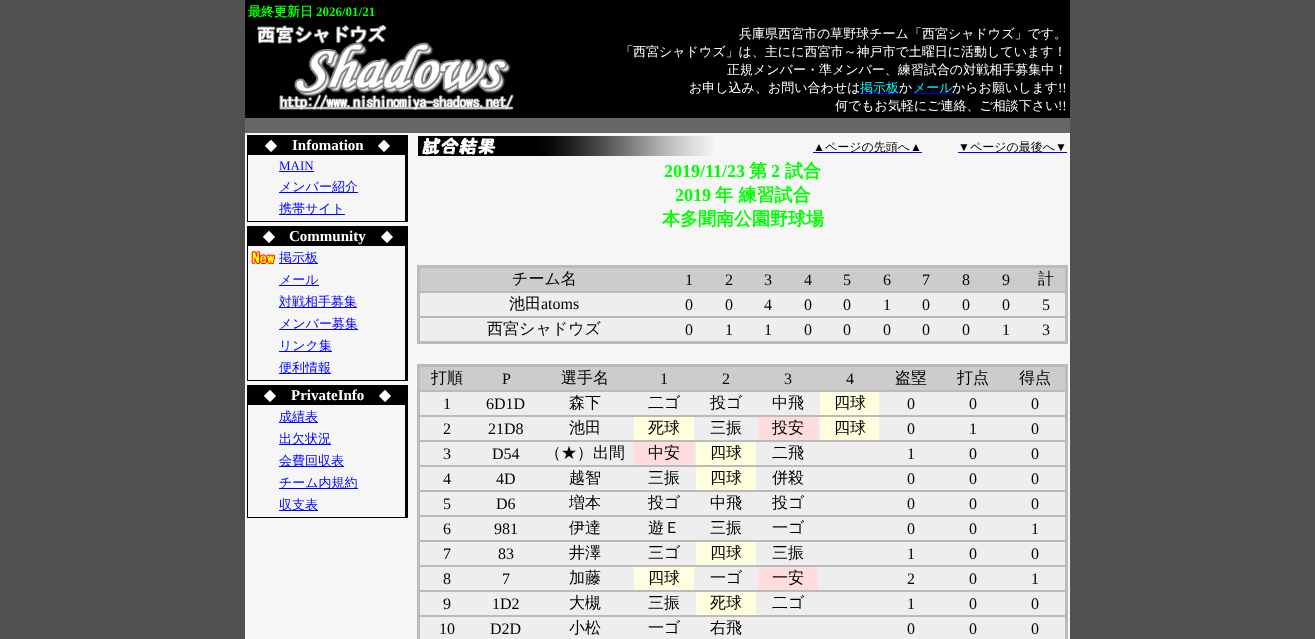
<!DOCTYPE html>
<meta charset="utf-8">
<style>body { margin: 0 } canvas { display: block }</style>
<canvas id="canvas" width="1315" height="639"></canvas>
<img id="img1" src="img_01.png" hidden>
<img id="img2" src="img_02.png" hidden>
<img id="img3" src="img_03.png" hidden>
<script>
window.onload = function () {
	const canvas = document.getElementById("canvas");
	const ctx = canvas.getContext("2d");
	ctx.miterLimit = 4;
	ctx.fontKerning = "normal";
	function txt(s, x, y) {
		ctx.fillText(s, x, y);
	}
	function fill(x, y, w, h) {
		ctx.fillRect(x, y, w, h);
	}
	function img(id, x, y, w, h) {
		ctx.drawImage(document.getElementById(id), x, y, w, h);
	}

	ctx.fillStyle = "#505050";
	fill(0, 0, 1315, 639);
	ctx.fillStyle = "#000000";
	fill(245, 0, 825, 118);
	img("img1", 257, 25, 257, 85);
	ctx.fillStyle = "#0000FF";
	fill(860, 93, 39, 1);
	fill(913, 93, 39, 1);
	ctx.fillStyle = "#666666";
	fill(245, 118, 825, 15);
	ctx.fillStyle = "#F6F6F6";
	fill(245, 133, 825, 506);
	ctx.fillStyle = "#000000";
	fill(247, 135, 161, 87);
	ctx.fillStyle = "#F6F6F6";
	fill(248, 155, 157, 66);
	ctx.fillStyle = "#0000FF";
	fill(279, 171, 35, 1);
	fill(279, 192, 79, 1);
	fill(279, 214, 66, 1);
	ctx.fillStyle = "#000000";
	fill(247, 226, 161, 155);
	ctx.fillStyle = "#F6F6F6";
	fill(248, 246, 157, 134);
	img("img2", 251, 251, 24, 13);
	ctx.fillStyle = "#0000FF";
	fill(279, 263, 39, 1);
	fill(279, 285, 40, 1);
	fill(279, 307, 78, 1);
	fill(279, 329, 79, 1);
	fill(279, 351, 53, 1);
	fill(279, 373, 52, 1);
	ctx.fillStyle = "#000000";
	fill(247, 385, 161, 133);
	ctx.fillStyle = "#F6F6F6";
	fill(248, 405, 157, 112);
	ctx.fillStyle = "#0000FF";
	fill(279, 422, 39, 1);
	fill(279, 444, 52, 1);
	fill(279, 466, 65, 1);
	fill(279, 488, 79, 1);
	fill(279, 510, 39, 1);
	img("img3", 418, 136, 295, 20);
	fill(813, 152, 109, 1);
	fill(958, 152, 109, 1);
	ctx.fillStyle = "#BBBBBB";
	fill(417, 265, 651, 79);
	ctx.fillStyle = "#CCCCCC";
	fill(420, 268, 645, 23);
	ctx.fillStyle = "#EEEEEE";
	fill(420, 293, 645, 23);
	fill(420, 318, 645, 23);
	ctx.fillStyle = "#BBBBBB";
	fill(417, 364, 651, 275);
	ctx.fillStyle = "#CCCCCC";
	fill(420, 367, 645, 23);
	ctx.fillStyle = "#EEEEEE";
	fill(420, 392, 645, 23);
	ctx.fillStyle = "#FFFFDD";
	fill(820, 392, 59, 23);
	ctx.fillStyle = "#EEEEEE";
	fill(420, 417, 645, 23);
	ctx.fillStyle = "#FFFFDD";
	fill(634, 417, 60, 23);
	ctx.fillStyle = "#FFDDDD";
	fill(758, 417, 60, 23);
	ctx.fillStyle = "#FFFFDD";
	fill(820, 417, 59, 23);
	ctx.fillStyle = "#EEEEEE";
	fill(420, 442, 645, 23);
	ctx.fillStyle = "#FFDDDD";
	fill(634, 442, 60, 23);
	ctx.fillStyle = "#FFFFDD";
	fill(696, 442, 60, 23);
	ctx.fillStyle = "#EEEEEE";
	fill(420, 467, 645, 23);
	ctx.fillStyle = "#FFFFDD";
	fill(696, 467, 60, 23);
	ctx.fillStyle = "#EEEEEE";
	fill(420, 492, 645, 23);
	fill(420, 517, 645, 23);
	fill(420, 542, 645, 23);
	ctx.fillStyle = "#FFFFDD";
	fill(696, 542, 60, 23);
	ctx.fillStyle = "#EEEEEE";
	fill(420, 567, 645, 23);
	ctx.fillStyle = "#FFFFDD";
	fill(634, 567, 60, 23);
	ctx.fillStyle = "#FFDDDD";
	fill(758, 567, 60, 23);
	ctx.fillStyle = "#EEEEEE";
	fill(420, 592, 645, 23);
	ctx.fillStyle = "#FFFFDD";
	fill(696, 592, 60, 23);
	ctx.fillStyle = "#EEEEEE";
	fill(420, 617, 645, 22);
	ctx.font = "bold 13px WenQuanYi Zen Hei";
	ctx.fillStyle = "#00FF00";
	txt("最終更新日", 248, 16);
	ctx.font = "bold 13px Liberation Serif";
	txt("2026/01/21", 316, 16);
	ctx.font = "500 13px WenQuanYi Zen Hei";
	ctx.fillStyle = "#FFFFFF";
	txt("兵庫県西宮市の草野球チーム「西宮シャドウズ」です。", 739, 38);
	txt("「西宮シャドウズ」は、主にに西宮市～神戸市で土曜日に活動しています！", 620, 56);
	txt("正規メンバー・準メンバー、練習試合の対戦相手募集中！", 727, 74);
	txt("お申し込み、お問い合わせは", 689, 92);
	ctx.fillStyle = "#00FFFF";
	txt("掲示板", 860, 92);
	ctx.fillStyle = "#FFFFFF";
	txt("か", 899, 92);
	ctx.fillStyle = "#00FFFF";
	txt("メール", 913, 92);
	ctx.fillStyle = "#FFFFFF";
	txt("からお願いします", 952, 92);
	ctx.font = "13px Liberation Serif";
	txt("!!", 1058, 92);
	ctx.font = "500 13px WenQuanYi Zen Hei";
	txt("何でもお気軽にご連絡、ご相談下さい", 835, 110);
	ctx.font = "13px Liberation Serif";
	txt("!!", 1058, 110);
	ctx.font = "bold 15px DejaVu Sans";
	txt("◆", 265, 150);
	ctx.font = "bold 15px Liberation Serif";
	txt("Infomation", 292, 150);
	ctx.font = "bold 15px DejaVu Sans";
	txt("◆", 378, 150);
	ctx.font = "13px Liberation Serif";
	ctx.fillStyle = "#0000FF";
	txt("MAIN", 279, 170);
	ctx.font = "500 13px WenQuanYi Zen Hei";
	txt("メンバー紹介", 279, 191);
	txt("携帯サイト", 279, 213);
	ctx.font = "bold 15px DejaVu Sans";
	ctx.fillStyle = "#FFFFFF";
	txt("◆", 263, 241);
	ctx.font = "bold 15px Liberation Serif";
	txt("Community", 289, 241);
	ctx.font = "bold 15px DejaVu Sans";
	txt("◆", 381, 241);
	ctx.font = "500 13px WenQuanYi Zen Hei";
	ctx.fillStyle = "#0000FF";
	txt("掲示板", 279, 262);
	txt("メール", 279, 284);
	txt("対戦相手募集", 279, 306);
	txt("メンバー募集", 279, 328);
	txt("リンク集", 279, 350);
	txt("便利情報", 279, 372);
	ctx.font = "bold 15px DejaVu Sans";
	ctx.fillStyle = "#FFFFFF";
	txt("◆", 264, 400);
	ctx.font = "bold 15px Liberation Serif";
	txt("PrivateInfo", 291, 400);
	ctx.font = "bold 15px DejaVu Sans";
	txt("◆", 379, 400);
	ctx.font = "500 13px WenQuanYi Zen Hei";
	ctx.fillStyle = "#0000FF";
	txt("成績表", 279, 421);
	txt("出欠状況", 279, 443);
	txt("会費回収表", 279, 465);
	txt("チーム内規約", 279, 487);
	txt("収支表", 279, 509);
	ctx.font = "12px Liberation Serif";
	ctx.fillStyle = "#000000";
	txt("▲", 813, 151);
	ctx.font = "500 12px WenQuanYi Zen Hei";
	txt("ページの先頭へ", 825, 151);
	ctx.font = "12px Liberation Serif";
	txt("▲", 910, 151);
	txt("▼", 958, 151);
	ctx.font = "500 12px WenQuanYi Zen Hei";
	txt("ページの最後へ", 970, 151);
	ctx.font = "12px Liberation Serif";
	txt("▼", 1055, 151);
	ctx.font = "bold 18px Liberation Serif";
	ctx.fillStyle = "#00FF00";
	txt("2019/11/23", 664, 177);
	ctx.font = "bold 18px WenQuanYi Zen Hei";
	txt("第", 749, 177);
	ctx.font = "bold 18px Liberation Serif";
	txt("2", 771, 177);
	ctx.font = "bold 18px WenQuanYi Zen Hei";
	txt("試合", 785, 177);
	ctx.font = "bold 18px Liberation Serif";
	txt("2019", 675, 201);
	ctx.font = "bold 18px WenQuanYi Zen Hei";
	txt("年 練習試合", 715, 201);
	txt("本多聞南公園野球場", 662, 225);
	ctx.font = "500 16px WenQuanYi Zen Hei";
	ctx.fillStyle = "#000000";
	txt("チーム名", 512, 284);
	ctx.font = "16px Liberation Serif";
	txt("1", 685, 285);
	txt("2", 725, 285);
	txt("3", 764, 285);
	txt("4", 804, 285);
	txt("5", 843, 285);
	txt("6", 883, 285);
	txt("7", 922, 285);
	txt("8", 962, 285);
	txt("9", 1002, 285);
	ctx.font = "500 16px WenQuanYi Zen Hei";
	txt("計", 1038, 284);
	txt("池田", 509, 309);
	ctx.font = "16px Liberation Serif";
	txt("atoms", 541, 309);
	txt("0", 685, 310);
	txt("0", 725, 310);
	txt("4", 764, 310);
	txt("0", 804, 310);
	txt("0", 843, 310);
	txt("1", 883, 310);
	txt("0", 922, 310);
	txt("0", 962, 310);
	txt("0", 1002, 310);
	txt("5", 1042, 310);
	ctx.font = "500 16px WenQuanYi Zen Hei";
	txt("西宮シャドウズ", 487, 334);
	ctx.font = "16px Liberation Serif";
	txt("0", 685, 335);
	txt("1", 725, 335);
	txt("1", 764, 335);
	txt("0", 804, 335);
	txt("0", 843, 335);
	txt("0", 883, 335);
	txt("0", 922, 335);
	txt("0", 962, 335);
	txt("1", 1002, 335);
	txt("3", 1042, 335);
	ctx.font = "500 16px WenQuanYi Zen Hei";
	txt("打順", 431, 383);
	ctx.font = "16px Liberation Serif";
	txt("P", 502, 384);
	ctx.font = "500 16px WenQuanYi Zen Hei";
	txt("選手名", 561, 383);
	ctx.font = "16px Liberation Serif";
	txt("1", 660, 384);
	txt("2", 722, 384);
	txt("3", 784, 384);
	txt("4", 846, 384);
	ctx.font = "500 16px WenQuanYi Zen Hei";
	txt("盗塁", 895, 383);
	txt("打点", 957, 383);
	txt("得点", 1019, 383);
	ctx.font = "16px Liberation Serif";
	txt("1", 443, 409);
	txt("6D1D", 486, 409);
	ctx.font = "500 16px WenQuanYi Zen Hei";
	txt("森下", 569, 408);
	txt("二ゴ", 648, 408);
	txt("投ゴ", 710, 408);
	txt("中飛", 772, 408);
	txt("四球", 834, 408);
	ctx.font = "16px Liberation Serif";
	txt("0", 907, 409);
	txt("0", 969, 409);
	txt("0", 1031, 409);
	txt("2", 443, 434);
	txt("21D8", 488, 434);
	ctx.font = "500 16px WenQuanYi Zen Hei";
	txt("池田", 569, 433);
	txt("死球", 648, 433);
	txt("三振", 710, 433);
	txt("投安", 772, 433);
	txt("四球", 834, 433);
	ctx.font = "16px Liberation Serif";
	txt("0", 907, 434);
	txt("1", 969, 434);
	txt("0", 1031, 434);
	txt("3", 443, 459);
	txt("D54", 492, 459);
	ctx.font = "500 16px WenQuanYi Zen Hei";
	txt("（★）出間", 545, 458);
	txt("中安", 648, 458);
	txt("四球", 710, 458);
	txt("二飛", 772, 458);
	ctx.font = "16px Liberation Serif";
	txt("1", 907, 459);
	txt("0", 969, 459);
	txt("0", 1031, 459);
	txt("4", 443, 484);
	txt("4D", 496, 484);
	ctx.font = "500 16px WenQuanYi Zen Hei";
	txt("越智", 569, 483);
	txt("三振", 648, 483);
	txt("四球", 710, 483);
	txt("併殺", 772, 483);
	ctx.font = "16px Liberation Serif";
	txt("0", 907, 484);
	txt("0", 969, 484);
	txt("0", 1031, 484);
	txt("5", 443, 509);
	txt("D6", 496, 509);
	ctx.font = "500 16px WenQuanYi Zen Hei";
	txt("増本", 569, 508);
	txt("投ゴ", 648, 508);
	txt("中飛", 710, 508);
	txt("投ゴ", 772, 508);
	ctx.font = "16px Liberation Serif";
	txt("0", 907, 509);
	txt("0", 969, 509);
	txt("0", 1031, 509);
	txt("6", 443, 534);
	txt("981", 494, 534);
	ctx.font = "500 16px WenQuanYi Zen Hei";
	txt("伊達", 569, 533);
	txt("遊Ｅ", 648, 533);
	txt("三振", 710, 533);
	txt("一ゴ", 772, 533);
	ctx.font = "16px Liberation Serif";
	txt("0", 907, 534);
	txt("0", 969, 534);
	txt("1", 1031, 534);
	txt("7", 443, 559);
	txt("83", 498, 559);
	ctx.font = "500 16px WenQuanYi Zen Hei";
	txt("井澤", 569, 558);
	txt("三ゴ", 648, 558);
	txt("四球", 710, 558);
	txt("三振", 772, 558);
	ctx.font = "16px Liberation Serif";
	txt("1", 907, 559);
	txt("0", 969, 559);
	txt("0", 1031, 559);
	txt("8", 443, 584);
	txt("7", 502, 584);
	ctx.font = "500 16px WenQuanYi Zen Hei";
	txt("加藤", 569, 583);
	txt("四球", 648, 583);
	txt("一ゴ", 710, 583);
	txt("一安", 772, 583);
	ctx.font = "16px Liberation Serif";
	txt("2", 907, 584);
	txt("0", 969, 584);
	txt("1", 1031, 584);
	txt("9", 443, 609);
	txt("1D2", 492, 609);
	ctx.font = "500 16px WenQuanYi Zen Hei";
	txt("大槻", 569, 608);
	txt("三振", 648, 608);
	txt("死球", 710, 608);
	txt("二ゴ", 772, 608);
	ctx.font = "16px Liberation Serif";
	txt("1", 907, 609);
	txt("0", 969, 609);
	txt("0", 1031, 609);
	txt("10", 439, 634);
	txt("D2D", 490, 634);
	ctx.font = "500 16px WenQuanYi Zen Hei";
	txt("小松", 569, 633);
	txt("一ゴ", 648, 633);
	txt("右飛", 710, 633);
	ctx.font = "16px Liberation Serif";
	txt("0", 907, 634);
	txt("0", 969, 634);
	txt("0", 1031, 634);
};
</script>
